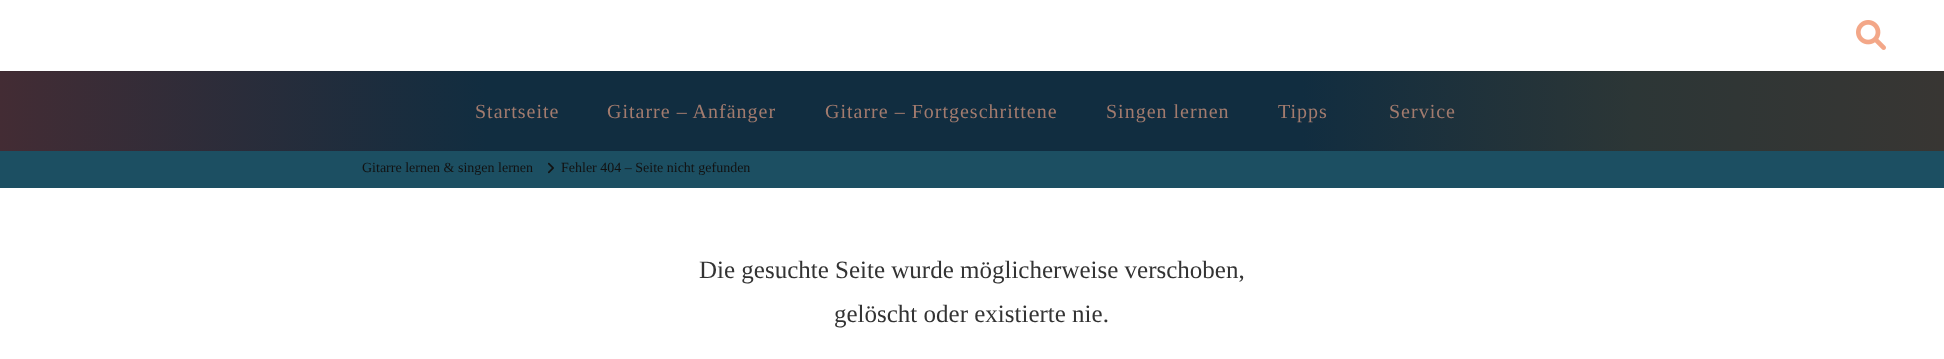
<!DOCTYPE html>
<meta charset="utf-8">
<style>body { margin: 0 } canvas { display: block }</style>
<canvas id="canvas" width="1944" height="359"></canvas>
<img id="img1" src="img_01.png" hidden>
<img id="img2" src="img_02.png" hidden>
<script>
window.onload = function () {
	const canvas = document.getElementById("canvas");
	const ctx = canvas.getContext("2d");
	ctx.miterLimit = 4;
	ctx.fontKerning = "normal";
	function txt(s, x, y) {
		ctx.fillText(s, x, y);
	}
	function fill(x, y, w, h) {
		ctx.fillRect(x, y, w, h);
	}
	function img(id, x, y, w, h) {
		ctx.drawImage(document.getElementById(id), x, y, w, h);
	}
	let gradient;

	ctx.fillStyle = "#FFFFFF";
	fill(0, 0, 1944, 359);
	img("img1", 1856, 20, 30, 30);
	gradient = ctx.createLinearGradient(0, 112, 1944, 111);
	gradient.addColorStop(0, "#432C34");
	gradient.addColorStop(0.25, "#112D40");
	gradient.addColorStop(0.67, "#112D40");
	gradient.addColorStop(0.84, "#2C3636");
	gradient.addColorStop(1, "#383633");
	ctx.fillStyle = gradient;
	fill(0, 72, 1944, 79);
	gradient = ctx.createLinearGradient(0, 112, 1944, 111);
	gradient.addColorStop(0, "#3E2930");
	gradient.addColorStop(0.25, "#102A3C");
	gradient.addColorStop(0.67, "#102A3C");
	gradient.addColorStop(0.84, "#293232");
	gradient.addColorStop(1, "#34322F");
	ctx.fillStyle = gradient;
	fill(0, 71, 1944, 1);
	ctx.fillStyle = "#1C4F62";
	fill(0, 151, 1944, 37);
	img("img2", 548, 162, 6, 12);
	ctx.letterSpacing = "1px";
	ctx.font = "20px Liberation Serif";
	ctx.fillStyle = "#A27B6E";
	txt("Startseite", 475, 118);
	txt("Gitarre – Anfänger", 607, 118);
	txt("Gitarre – Fortgeschrittene", 825, 118);
	txt("Singen lernen", 1106, 118);
	txt("Tipps", 1278, 118);
	txt("Service", 1389, 118);
	ctx.letterSpacing = "0px";
	ctx.font = "14px Liberation Serif";
	ctx.fillStyle = "#121212";
	txt("Gitarre lernen & singen lernen", 362, 172);
	txt("Fehler 404 – Seite nicht gefunden", 561, 172);
	ctx.font = "25px Liberation Serif";
	ctx.fillStyle = "#333333";
	txt("Die gesuchte Seite wurde möglicherweise verschoben,", 699, 278);
	txt("gelöscht oder existierte nie.", 834, 322);
};
</script>
